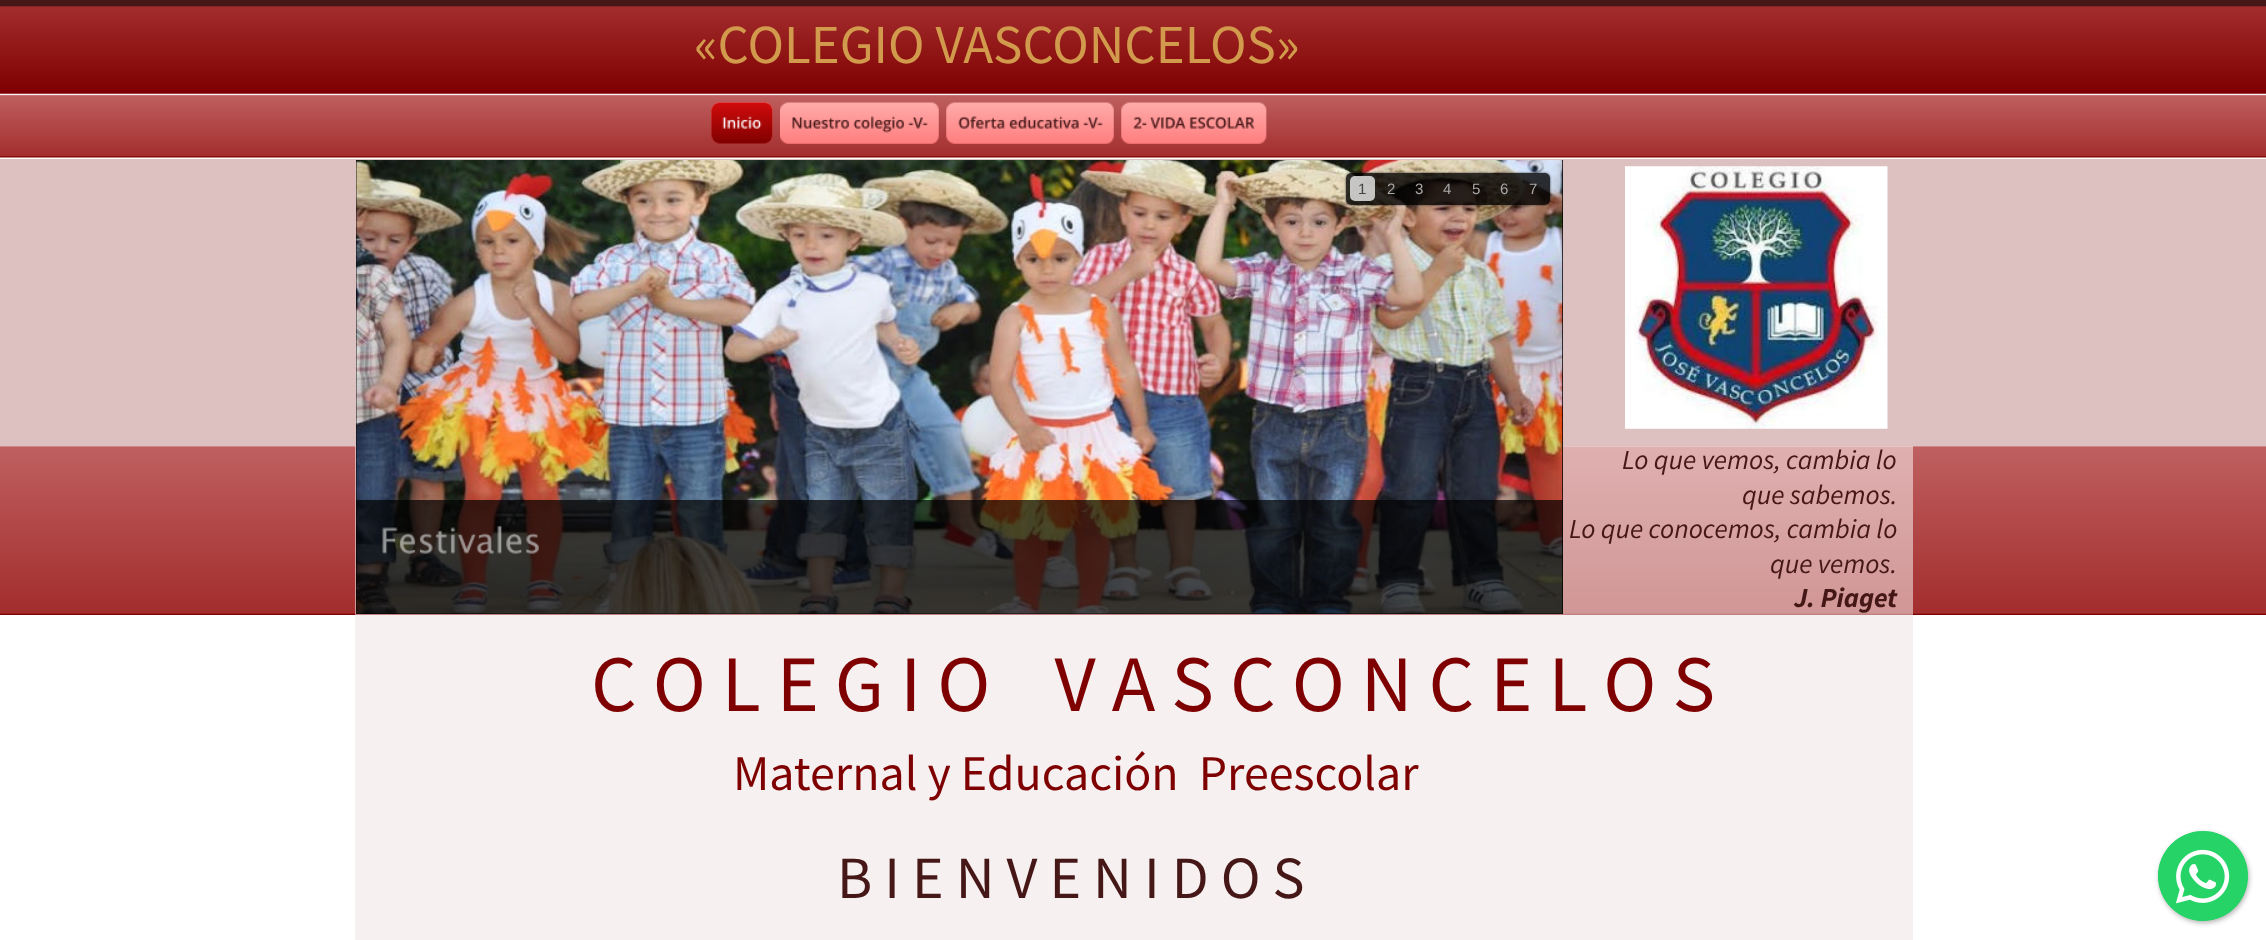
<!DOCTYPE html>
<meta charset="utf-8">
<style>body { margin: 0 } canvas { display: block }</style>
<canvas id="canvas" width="2266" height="940"></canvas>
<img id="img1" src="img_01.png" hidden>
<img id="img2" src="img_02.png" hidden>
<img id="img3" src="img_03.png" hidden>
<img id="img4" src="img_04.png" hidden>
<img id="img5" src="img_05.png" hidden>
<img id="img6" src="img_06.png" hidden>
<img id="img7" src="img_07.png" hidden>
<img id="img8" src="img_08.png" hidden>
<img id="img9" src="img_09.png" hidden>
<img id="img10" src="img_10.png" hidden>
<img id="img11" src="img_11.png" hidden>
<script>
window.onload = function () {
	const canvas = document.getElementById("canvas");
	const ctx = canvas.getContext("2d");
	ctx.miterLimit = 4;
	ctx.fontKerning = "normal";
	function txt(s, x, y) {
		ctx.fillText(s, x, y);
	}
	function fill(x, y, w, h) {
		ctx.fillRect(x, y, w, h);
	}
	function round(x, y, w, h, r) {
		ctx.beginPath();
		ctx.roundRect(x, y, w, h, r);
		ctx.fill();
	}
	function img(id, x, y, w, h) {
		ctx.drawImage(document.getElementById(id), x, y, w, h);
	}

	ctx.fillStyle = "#FFFFFF";
	fill(0, 0, 2266, 940);
	img("img1", 0, 0, 2266, 158);
	ctx.fillStyle = "#DDC0C0";
	fill(0, 159, 2266, 287);
	img("img2", 0, 446, 2266, 169);
	ctx.fillStyle = "rgba(255, 255, 255, 0.5)";
	fill(355, 446, 1558, 169);
	ctx.fillStyle = "#000000";
	fill(356, 160, 1207, 454);
	img("img3", 356, 160, 1207, 454);
	ctx.save();
	ctx.beginPath();
	ctx.moveTo(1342, 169);
	ctx.lineTo(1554, 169);
	ctx.lineTo(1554, 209);
	ctx.lineTo(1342, 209);
	ctx.closePath();
	ctx.moveTo(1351, 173);
	ctx.lineTo(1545, 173);
	ctx.bezierCurveTo(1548, 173, 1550, 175, 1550, 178);
	ctx.lineTo(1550, 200);
	ctx.bezierCurveTo(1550, 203, 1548, 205, 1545, 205);
	ctx.lineTo(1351, 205);
	ctx.bezierCurveTo(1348, 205, 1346, 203, 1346, 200);
	ctx.lineTo(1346, 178);
	ctx.bezierCurveTo(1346, 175, 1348, 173, 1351, 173);
	ctx.closePath();
	ctx.clip("evenodd");
	ctx.fillStyle = "rgba(34, 34, 34, 0.8)";
	ctx.filter = "blur(1px)";
	ctx.beginPath();
	ctx.roundRect(1346, 173, 204, 32, 5);
	ctx.fill();
	ctx.filter = "none";
	ctx.restore();
	ctx.fillStyle = "rgba(0, 0, 0, 0.8)";
	round(1346, 173, 204, 32, 5);
	ctx.fillStyle = "rgba(238, 238, 238, 0.8)";
	round(1350, 176, 25, 25, 5);
	ctx.fillStyle = "rgba(0, 0, 0, 0.7)";
	fill(356, 500, 1207, 114);
	img("img4", 382, 526, 157, 28);
	img("img5", 1625, 166, 263, 263);
	img("img6", 711, 102, 62, 42);
	img("img7", 711, 102, 62, 42);
	img("img8", 780, 102, 159, 42);
	img("img9", 946, 102, 168, 42);
	img("img10", 1121, 102, 146, 42);
	ctx.fillStyle = "#F7F0F0";
	fill(355, 615, 1558, 325);
	ctx.fillStyle = "rgba(60, 60, 60, 0.4)";
	ctx.filter = "blur(2.5px)";
	ctx.beginPath();
	ctx.roundRect(2159, 833, 90, 90, 45);
	ctx.fill();
	ctx.filter = "none";
	ctx.fillStyle = "#25D366";
	ctx.beginPath();
	ctx.arc(2203, 876, 45, 0, Math.PI * 2);
	ctx.fill();
	img("img11", 2158, 831, 90, 90);
	ctx.font = "55px Source Sans Pro";
	ctx.fillStyle = "#D19A4C";
	txt("«COLEGIO VASCONCELOS»", 694, 63);
	ctx.font = "15px Liberation Sans";
	ctx.fillStyle = "#434343";
	txt("1", 1358, 194);
	ctx.fillStyle = "#AAA9A8";
	txt("2", 1387, 194);
	txt("3", 1415, 194);
	txt("4", 1443, 194);
	txt("5", 1472, 194);
	txt("6", 1500, 194);
	txt("7", 1529, 194);
	ctx.font = "italic 27.5px Source Sans Pro";
	ctx.fillStyle = "#451717";
	txt("Lo que vemos, cambia lo", 1622, 469);
	txt("que sabemos.", 1742, 504);
	txt("Lo que conocemos, cambia lo", 1569, 538);
	txt("que vemos.", 1770, 573);
	ctx.font = "italic bold 27.5px Source Sans Pro";
	txt("J. Piaget", 1794, 607);
	ctx.font = "80px Source Sans Pro";
	ctx.fillStyle = "#7F0000";
	txt("C O L E G I O    V A S C O N C E L O S", 591, 711);
	ctx.font = "50px Source Sans Pro";
	txt("Maternal y Educación  Preescolar", 733, 790);
	ctx.font = "60px Source Sans Pro";
	ctx.fillStyle = "#451717";
	txt("B I E N V E N I D O S", 837, 898);
};
</script>
